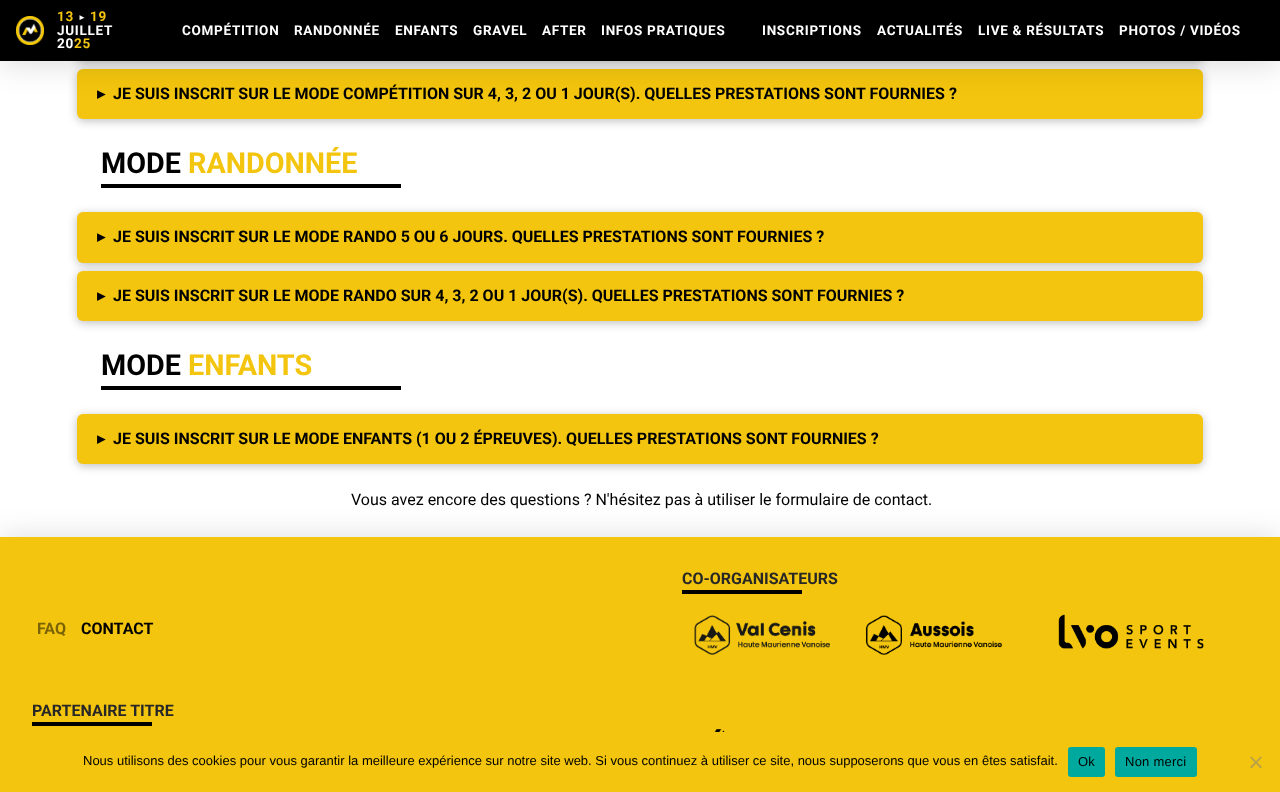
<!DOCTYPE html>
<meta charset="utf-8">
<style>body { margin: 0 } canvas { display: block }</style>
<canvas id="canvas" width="1280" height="792"></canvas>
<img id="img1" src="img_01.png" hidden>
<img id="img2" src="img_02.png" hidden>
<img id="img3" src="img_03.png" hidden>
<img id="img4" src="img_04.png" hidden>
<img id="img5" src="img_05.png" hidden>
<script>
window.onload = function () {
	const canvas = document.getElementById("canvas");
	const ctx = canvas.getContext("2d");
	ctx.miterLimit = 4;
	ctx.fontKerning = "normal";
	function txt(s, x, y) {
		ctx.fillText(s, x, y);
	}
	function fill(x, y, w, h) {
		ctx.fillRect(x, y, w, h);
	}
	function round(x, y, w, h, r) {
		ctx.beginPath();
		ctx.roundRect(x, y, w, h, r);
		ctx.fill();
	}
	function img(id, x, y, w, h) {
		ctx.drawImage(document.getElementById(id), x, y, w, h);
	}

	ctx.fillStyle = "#FFFFFF";
	fill(0, 0, 1280, 792);
	ctx.fillStyle = "rgba(0, 0, 0, 0.25)";
	ctx.filter = "blur(5px)";
	ctx.beginPath();
	ctx.roundRect(77, 12, 1126, 51, 6);
	ctx.fill();
	ctx.filter = "none";
	ctx.filter = "blur(5px)";
	ctx.beginPath();
	ctx.roundRect(77, 71, 1126, 50, 6);
	ctx.fill();
	ctx.filter = "none";
	ctx.fillStyle = "#F3C50E";
	round(77, 69, 1126, 50, 6);
	ctx.fillStyle = "rgba(0, 0, 0, 0.15)";
	ctx.filter = "blur(16px)";
	ctx.beginPath();
	ctx.rect(0, 2, 1280, 61);
	ctx.fill();
	ctx.filter = "none";
	ctx.fillStyle = "#000000";
	fill(0, 0, 1280, 61);
	img("img1", 16, 16, 28, 29);
	fill(101, 184, 300, 4);
	ctx.fillStyle = "rgba(0, 0, 0, 0.25)";
	ctx.filter = "blur(5px)";
	ctx.beginPath();
	ctx.roundRect(77, 214, 1126, 51, 6);
	ctx.fill();
	ctx.filter = "none";
	ctx.fillStyle = "#F3C50E";
	round(77, 212, 1126, 51, 6);
	ctx.fillStyle = "rgba(0, 0, 0, 0.25)";
	ctx.filter = "blur(5px)";
	ctx.beginPath();
	ctx.roundRect(77, 273, 1126, 50, 6);
	ctx.fill();
	ctx.filter = "none";
	ctx.fillStyle = "#F3C50E";
	round(77, 271, 1126, 50, 6);
	ctx.fillStyle = "#000000";
	fill(101, 386, 300, 4);
	ctx.fillStyle = "rgba(0, 0, 0, 0.25)";
	ctx.filter = "blur(5px)";
	ctx.beginPath();
	ctx.roundRect(77, 416, 1126, 50, 6);
	ctx.fill();
	ctx.filter = "none";
	ctx.fillStyle = "#F3C50E";
	round(77, 414, 1126, 50, 6);
	ctx.fillStyle = "rgba(0, 0, 0, 0.15)";
	ctx.filter = "blur(16px)";
	ctx.beginPath();
	ctx.rect(0, 539, 1280, 32);
	ctx.fill();
	ctx.filter = "none";
	ctx.fillStyle = "#F3C50E";
	fill(0, 537, 1280, 255);
	ctx.fillStyle = "#000000";
	fill(682, 590, 120, 4);
	img("img2", 694, 615, 136, 40);
	img("img3", 865, 615, 137, 40);
	img("img4", 1058, 614, 146, 35);
	fill(32, 722, 120, 4);
	img("img5", 714, 729, 11, 3);
	ctx.fillStyle = "#00A99D";
	round(1068, 747, 37, 30, 3);
	round(1115, 747, 82, 30, 3);
	ctx.fillStyle = "#BAA347";
	ctx.beginPath();
	ctx.moveTo(1260.5, 756.5);
	ctx.lineTo(1262, 757.5);
	ctx.lineTo(1251.5, 768.5);
	ctx.lineTo(1250, 767);
	ctx.closePath();
	ctx.fill();
	ctx.beginPath();
	ctx.moveTo(1250, 757.5);
	ctx.lineTo(1251.5, 756.5);
	ctx.lineTo(1262, 767);
	ctx.lineTo(1260.5, 768.5);
	ctx.closePath();
	ctx.fill();
	ctx.letterSpacing = "0.7px";
	ctx.font = "bold 13.5px Roboto";
	ctx.fillStyle = "#F3C50E";
	txt("13", 57, 21);
	ctx.font = "bold 8px Liberation Sans";
	ctx.fillStyle = "#FFFFFF";
	txt("►", 78, 20);
	ctx.font = "bold 13.5px Roboto";
	ctx.fillStyle = "#F3C50E";
	txt("19", 90, 21);
	ctx.fillStyle = "#FFFFFF";
	txt("JUILLET", 57, 35);
	txt("20", 57, 48);
	ctx.fillStyle = "#F3C50E";
	txt("25", 74, 48);
	ctx.fillStyle = "#FFFFFF";
	txt("COMPÉTITION", 182, 35);
	txt("RANDONNÉE", 294, 35);
	txt("ENFANTS", 395, 35);
	txt("GRAVEL", 473, 35);
	txt("AFTER", 542, 35);
	txt("INFOS PRATIQUES", 601, 35);
	txt("INSCRIPTIONS", 762, 35);
	txt("ACTUALITÉS", 877, 35);
	txt("LIVE & RÉSULTATS", 978, 35);
	txt("PHOTOS / VIDÉOS", 1119, 35);
	ctx.letterSpacing = "0px";
	ctx.font = "bold 16px DejaVu Sans";
	ctx.fillStyle = "#000000";
	txt("▸", 97, 99);
	ctx.font = "bold 16px Roboto";
	txt("JE SUIS INSCRIT SUR LE MODE COMPÉTITION SUR 4, 3, 2 OU 1 JOUR(S). QUELLES PRESTATIONS SONT FOURNIES ?", 113, 99);
	ctx.font = "bold 28.75px Roboto";
	txt("MODE", 101, 173);
	ctx.fillStyle = "#F3C50E";
	txt("RANDONNÉE", 188, 173);
	ctx.font = "bold 16px DejaVu Sans";
	ctx.fillStyle = "#000000";
	txt("▸", 97, 242);
	ctx.font = "bold 16px Roboto";
	txt("JE SUIS INSCRIT SUR LE MODE RANDO 5 OU 6 JOURS. QUELLES PRESTATIONS SONT FOURNIES ?", 113, 242);
	ctx.font = "bold 16px DejaVu Sans";
	txt("▸", 97, 301);
	ctx.font = "bold 16px Roboto";
	txt("JE SUIS INSCRIT SUR LE MODE RANDO SUR 4, 3, 2 OU 1 JOUR(S). QUELLES PRESTATIONS SONT FOURNIES ?", 113, 301);
	ctx.font = "bold 28.75px Roboto";
	txt("MODE", 101, 375);
	ctx.fillStyle = "#F3C50E";
	txt("ENFANTS", 188, 375);
	ctx.font = "bold 16px DejaVu Sans";
	ctx.fillStyle = "#000000";
	txt("▸", 97, 444);
	ctx.font = "bold 16px Roboto";
	txt("JE SUIS INSCRIT SUR LE MODE ENFANTS (1 OU 2 ÉPREUVES). QUELLES PRESTATIONS SONT FOURNIES ?", 113, 444);
	ctx.font = "16px Roboto";
	txt("Vous avez encore des questions ? N'hésitez pas à utiliser le formulaire de contact.", 351, 505);
	ctx.font = "bold 16px Roboto";
	ctx.fillStyle = "#272727";
	txt("CO-ORGANISATEURS", 682, 584);
	ctx.fillStyle = "#7A6307";
	txt("FAQ", 37, 634);
	ctx.fillStyle = "#000000";
	txt("CONTACT", 81, 634);
	ctx.fillStyle = "#272727";
	txt("PARTENAIRE TITRE", 32, 716);
	ctx.font = "13px Liberation Sans";
	ctx.fillStyle = "#000000";
	txt("Nous utilisons des cookies pour vous garantir la meilleure expérience sur notre site web. Si vous continuez à utiliser ce site, nous supposerons que vous en êtes satisfait.", 83, 765);
	ctx.letterSpacing = "0.25px";
	txt("Ok", 1078, 766);
	txt("Non merci", 1125, 766);
};
</script>
